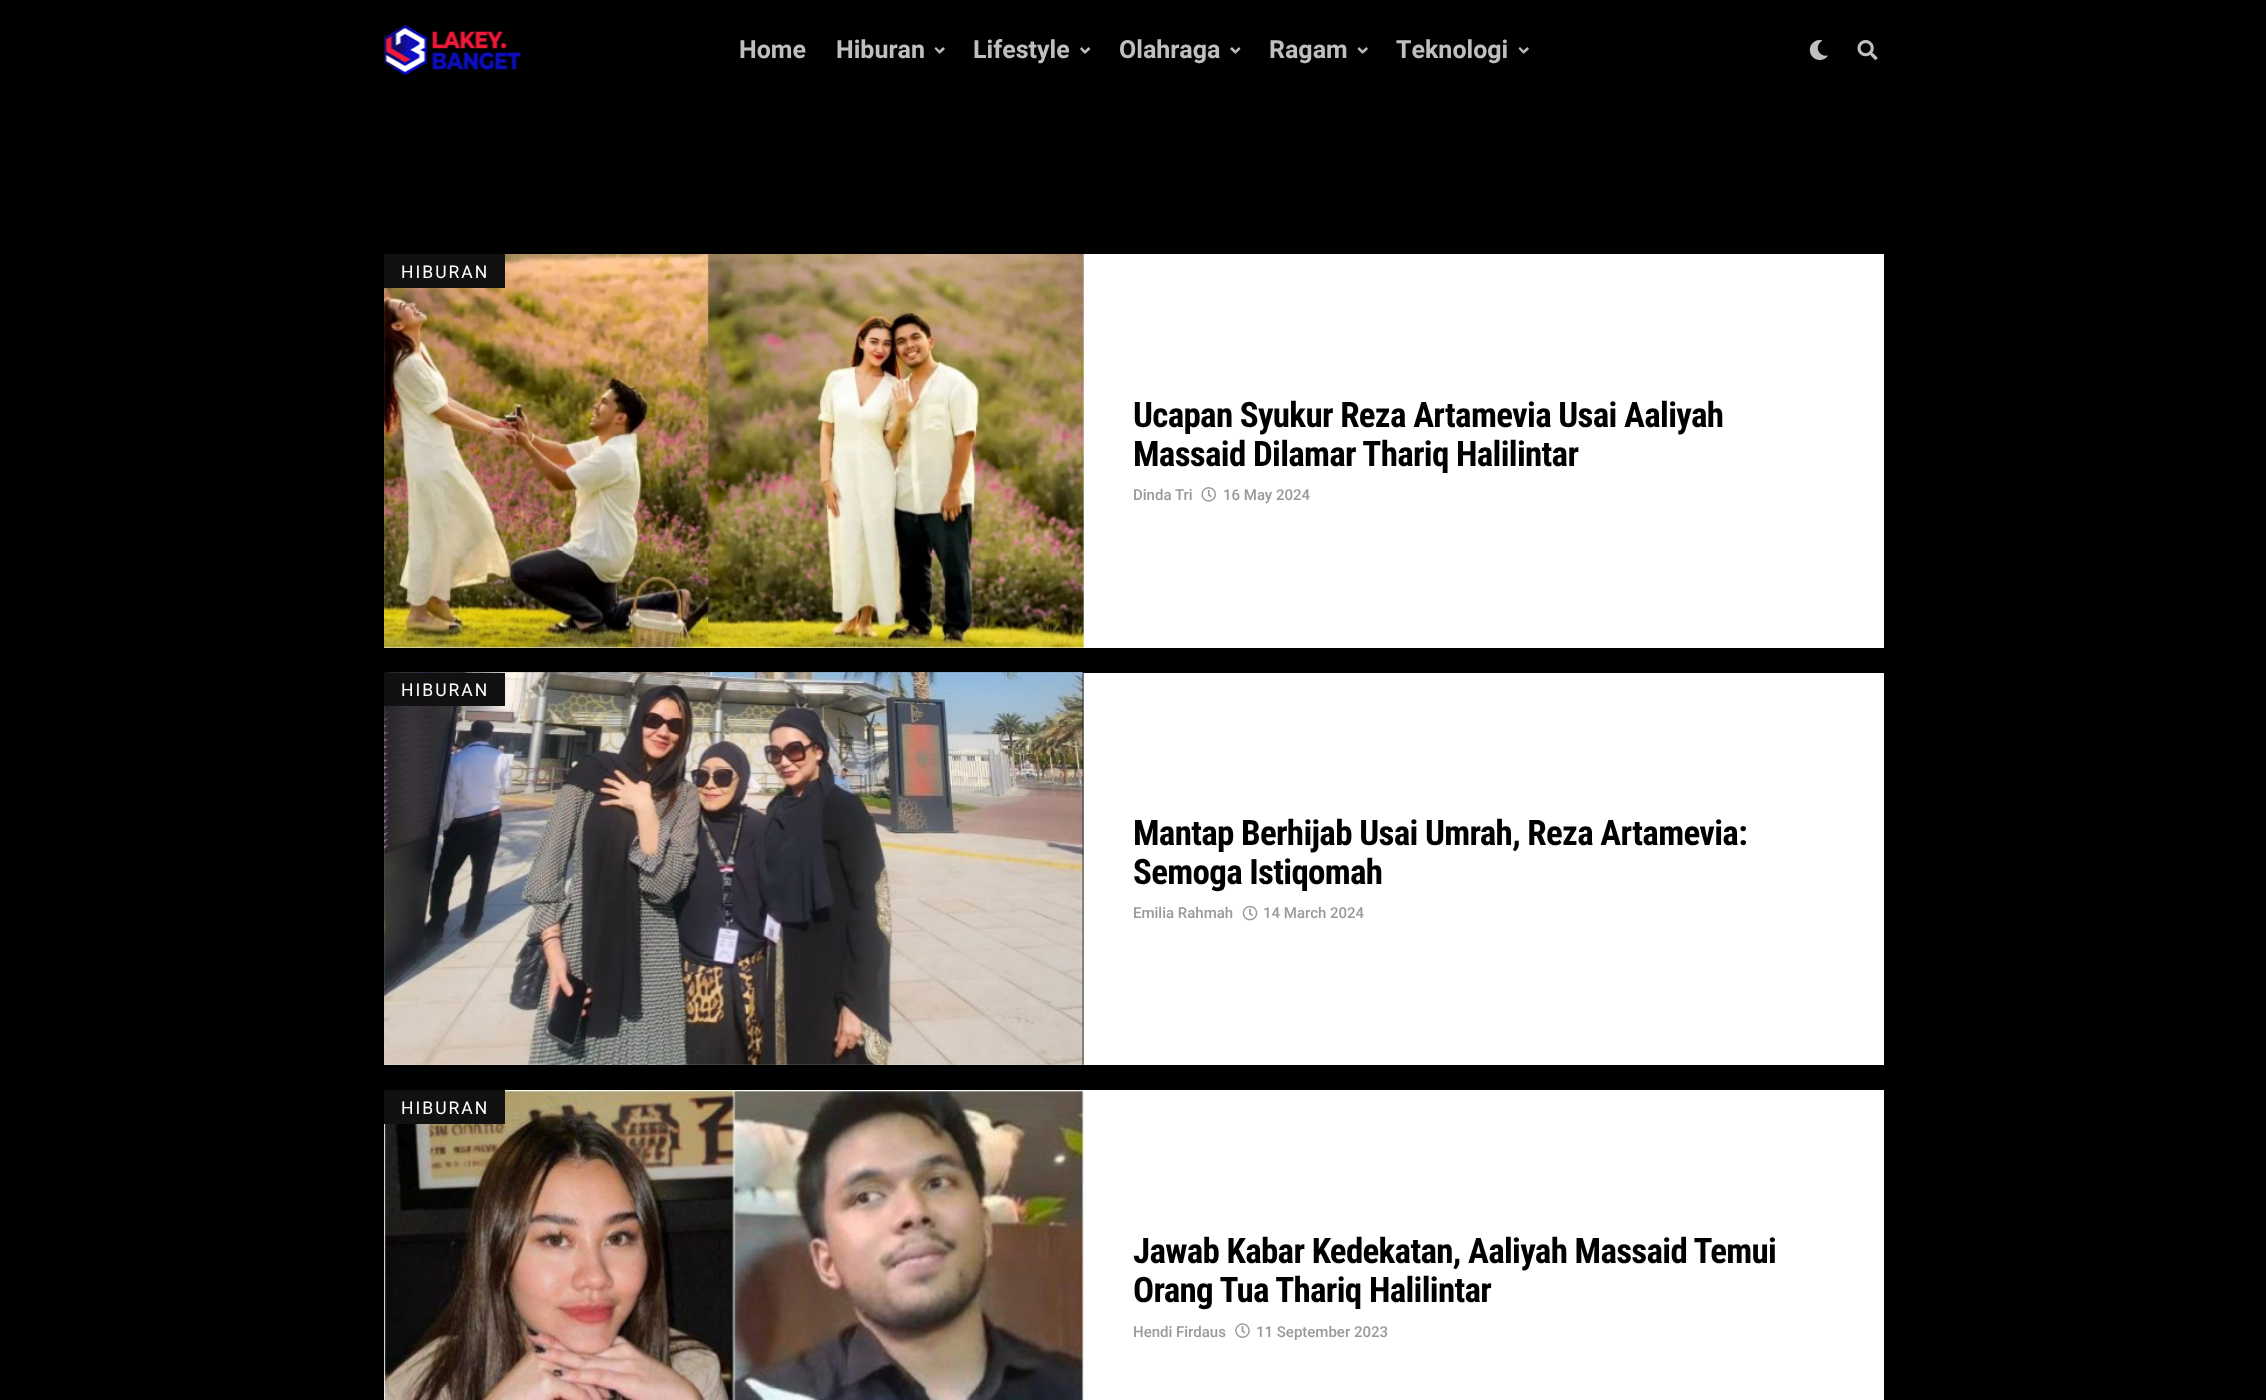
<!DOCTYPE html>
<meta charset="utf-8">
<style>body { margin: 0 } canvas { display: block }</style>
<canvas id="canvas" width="2266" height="1400"></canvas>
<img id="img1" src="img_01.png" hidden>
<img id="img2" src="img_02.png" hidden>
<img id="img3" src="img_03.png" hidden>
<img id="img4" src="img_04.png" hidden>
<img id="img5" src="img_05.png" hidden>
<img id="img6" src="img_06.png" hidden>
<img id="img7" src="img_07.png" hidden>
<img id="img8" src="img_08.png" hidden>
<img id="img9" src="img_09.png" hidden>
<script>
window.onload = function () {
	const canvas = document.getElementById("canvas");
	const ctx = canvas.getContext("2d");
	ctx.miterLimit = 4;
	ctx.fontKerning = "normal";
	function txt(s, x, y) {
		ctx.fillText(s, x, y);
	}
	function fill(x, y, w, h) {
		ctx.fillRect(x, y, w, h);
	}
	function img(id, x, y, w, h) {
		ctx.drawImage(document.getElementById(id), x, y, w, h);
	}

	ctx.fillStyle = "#000000";
	fill(0, 0, 2266, 1400);
	img("img1", 384, 25, 137, 50);
	ctx.fillStyle = "#BFBFBF";
	ctx.beginPath();
	ctx.moveTo(945, 49);
	ctx.lineTo(939.5, 54);
	ctx.lineTo(939.5, 50.5);
	ctx.lineTo(943, 47);
	ctx.closePath();
	ctx.fill();
	ctx.fillStyle = "rgba(255, 255, 255, 0.75)";
	ctx.beginPath();
	ctx.moveTo(939.5, 54);
	ctx.lineTo(934.5, 48.5);
	ctx.lineTo(936, 47);
	ctx.lineTo(939.5, 50.5);
	ctx.closePath();
	ctx.fill();
	ctx.fillStyle = "#BFBFBF";
	ctx.beginPath();
	ctx.moveTo(1090.5, 49);
	ctx.lineTo(1085, 54);
	ctx.lineTo(1085, 50.5);
	ctx.lineTo(1088.5, 47);
	ctx.closePath();
	ctx.moveTo(1085, 54);
	ctx.lineTo(1080, 49);
	ctx.lineTo(1081.5, 47);
	ctx.lineTo(1085, 50.5);
	ctx.closePath();
	ctx.fill();
	ctx.beginPath();
	ctx.moveTo(1240.5, 49);
	ctx.lineTo(1235.5, 54);
	ctx.lineTo(1235.5, 50.5);
	ctx.lineTo(1239, 47);
	ctx.closePath();
	ctx.fill();
	ctx.fillStyle = "rgba(255, 255, 255, 0.75)";
	ctx.beginPath();
	ctx.moveTo(1235.5, 54);
	ctx.lineTo(1230, 49);
	ctx.lineTo(1232, 47);
	ctx.lineTo(1235.5, 50.5);
	ctx.closePath();
	ctx.fill();
	ctx.fillStyle = "#BFBFBF";
	ctx.beginPath();
	ctx.moveTo(1368, 49);
	ctx.lineTo(1362.5, 54);
	ctx.lineTo(1362.5, 50.5);
	ctx.lineTo(1366.5, 47);
	ctx.closePath();
	ctx.fill();
	ctx.fillStyle = "rgba(255, 255, 255, 0.75)";
	ctx.beginPath();
	ctx.moveTo(1362.5, 54);
	ctx.lineTo(1357.5, 49);
	ctx.lineTo(1359, 47);
	ctx.lineTo(1362.5, 50.5);
	ctx.closePath();
	ctx.fill();
	ctx.fillStyle = "#BFBFBF";
	ctx.beginPath();
	ctx.moveTo(1529, 49);
	ctx.lineTo(1523.5, 54);
	ctx.lineTo(1523.5, 50.5);
	ctx.lineTo(1527.5, 47);
	ctx.closePath();
	ctx.fill();
	ctx.fillStyle = "rgba(255, 255, 255, 0.75)";
	ctx.beginPath();
	ctx.moveTo(1523.5, 54);
	ctx.lineTo(1518.5, 48.5);
	ctx.lineTo(1520, 47);
	ctx.lineTo(1523.5, 50.5);
	ctx.closePath();
	ctx.fill();
	img("img2", 1809, 40, 19, 20);
	img("img3", 1857, 40, 21, 20);
	ctx.fillStyle = "#FFFFFF";
	fill(384, 254, 1500, 394);
	img("img4", 384, 254, 700, 394);
	ctx.fillStyle = "#111111";
	fill(384, 254, 121, 34);
	img("img5", 1201, 487, 15, 15);
	ctx.fillStyle = "#FFFFFF";
	fill(384, 673, 1500, 392);
	img("img6", 384, 672, 700, 393);
	ctx.fillStyle = "#111111";
	fill(384, 673, 121, 33);
	img("img7", 1242, 905, 16, 16);
	ctx.fillStyle = "#FFFFFF";
	fill(384, 1090, 1500, 310);
	img("img8", 384, 1090, 700, 310);
	ctx.fillStyle = "#111111";
	fill(384, 1090, 121, 34);
	img("img9", 1235, 1323, 15, 15);
	ctx.font = "bold 25px Heebo";
	ctx.fillStyle = "#BFBFBF";
	txt("Home", 739, 58);
	txt("Hiburan", 836, 58);
	txt("Lifestyle", 973, 58);
	txt("Olahraga", 1119, 58);
	txt("Ragam", 1269, 58);
	txt("Teknologi", 1396, 58);
	ctx.letterSpacing = "2px";
	ctx.font = "17.5px Roboto";
	ctx.fillStyle = "#FFFFFF";
	txt("HIBURAN", 401, 278);
	ctx.letterSpacing = "-0.7px";
	ctx.font = "bold 35px Roboto Condensed";
	ctx.fillStyle = "#000000";
	txt("Ucapan Syukur Reza Artamevia Usai Aaliyah", 1133, 427);
	txt("Massaid Dilamar Thariq Halilintar", 1133, 466);
	ctx.letterSpacing = "0px";
	ctx.font = "500 15px Roboto";
	ctx.fillStyle = "#999999";
	txt("Dinda Tri", 1133, 500);
	txt("16 May 2024", 1223, 500);
	ctx.letterSpacing = "2px";
	ctx.font = "17.5px Roboto";
	ctx.fillStyle = "#FFFFFF";
	txt("HIBURAN", 401, 696);
	ctx.letterSpacing = "-0.7px";
	ctx.font = "bold 35px Roboto Condensed";
	ctx.fillStyle = "#000000";
	txt("Mantap Berhijab Usai Umrah, Reza Artamevia:", 1133, 845);
	txt("Semoga Istiqomah", 1133, 884);
	ctx.letterSpacing = "0px";
	ctx.font = "500 15px Roboto";
	ctx.fillStyle = "#999999";
	txt("Emilia Rahmah", 1133, 918);
	txt("14 March 2024", 1263, 918);
	ctx.letterSpacing = "2px";
	ctx.font = "17.5px Roboto";
	ctx.fillStyle = "#FFFFFF";
	txt("HIBURAN", 401, 1114);
	ctx.letterSpacing = "-0.7px";
	ctx.font = "bold 35px Roboto Condensed";
	ctx.fillStyle = "#000000";
	txt("Jawab Kabar Kedekatan, Aaliyah Massaid Temui", 1133, 1263);
	txt("Orang Tua Thariq Halilintar", 1133, 1302);
	ctx.letterSpacing = "0px";
	ctx.font = "500 15px Roboto";
	ctx.fillStyle = "#999999";
	txt("Hendi Firdaus", 1133, 1337);
	txt("11 September 2023", 1256, 1337);
};
</script>
